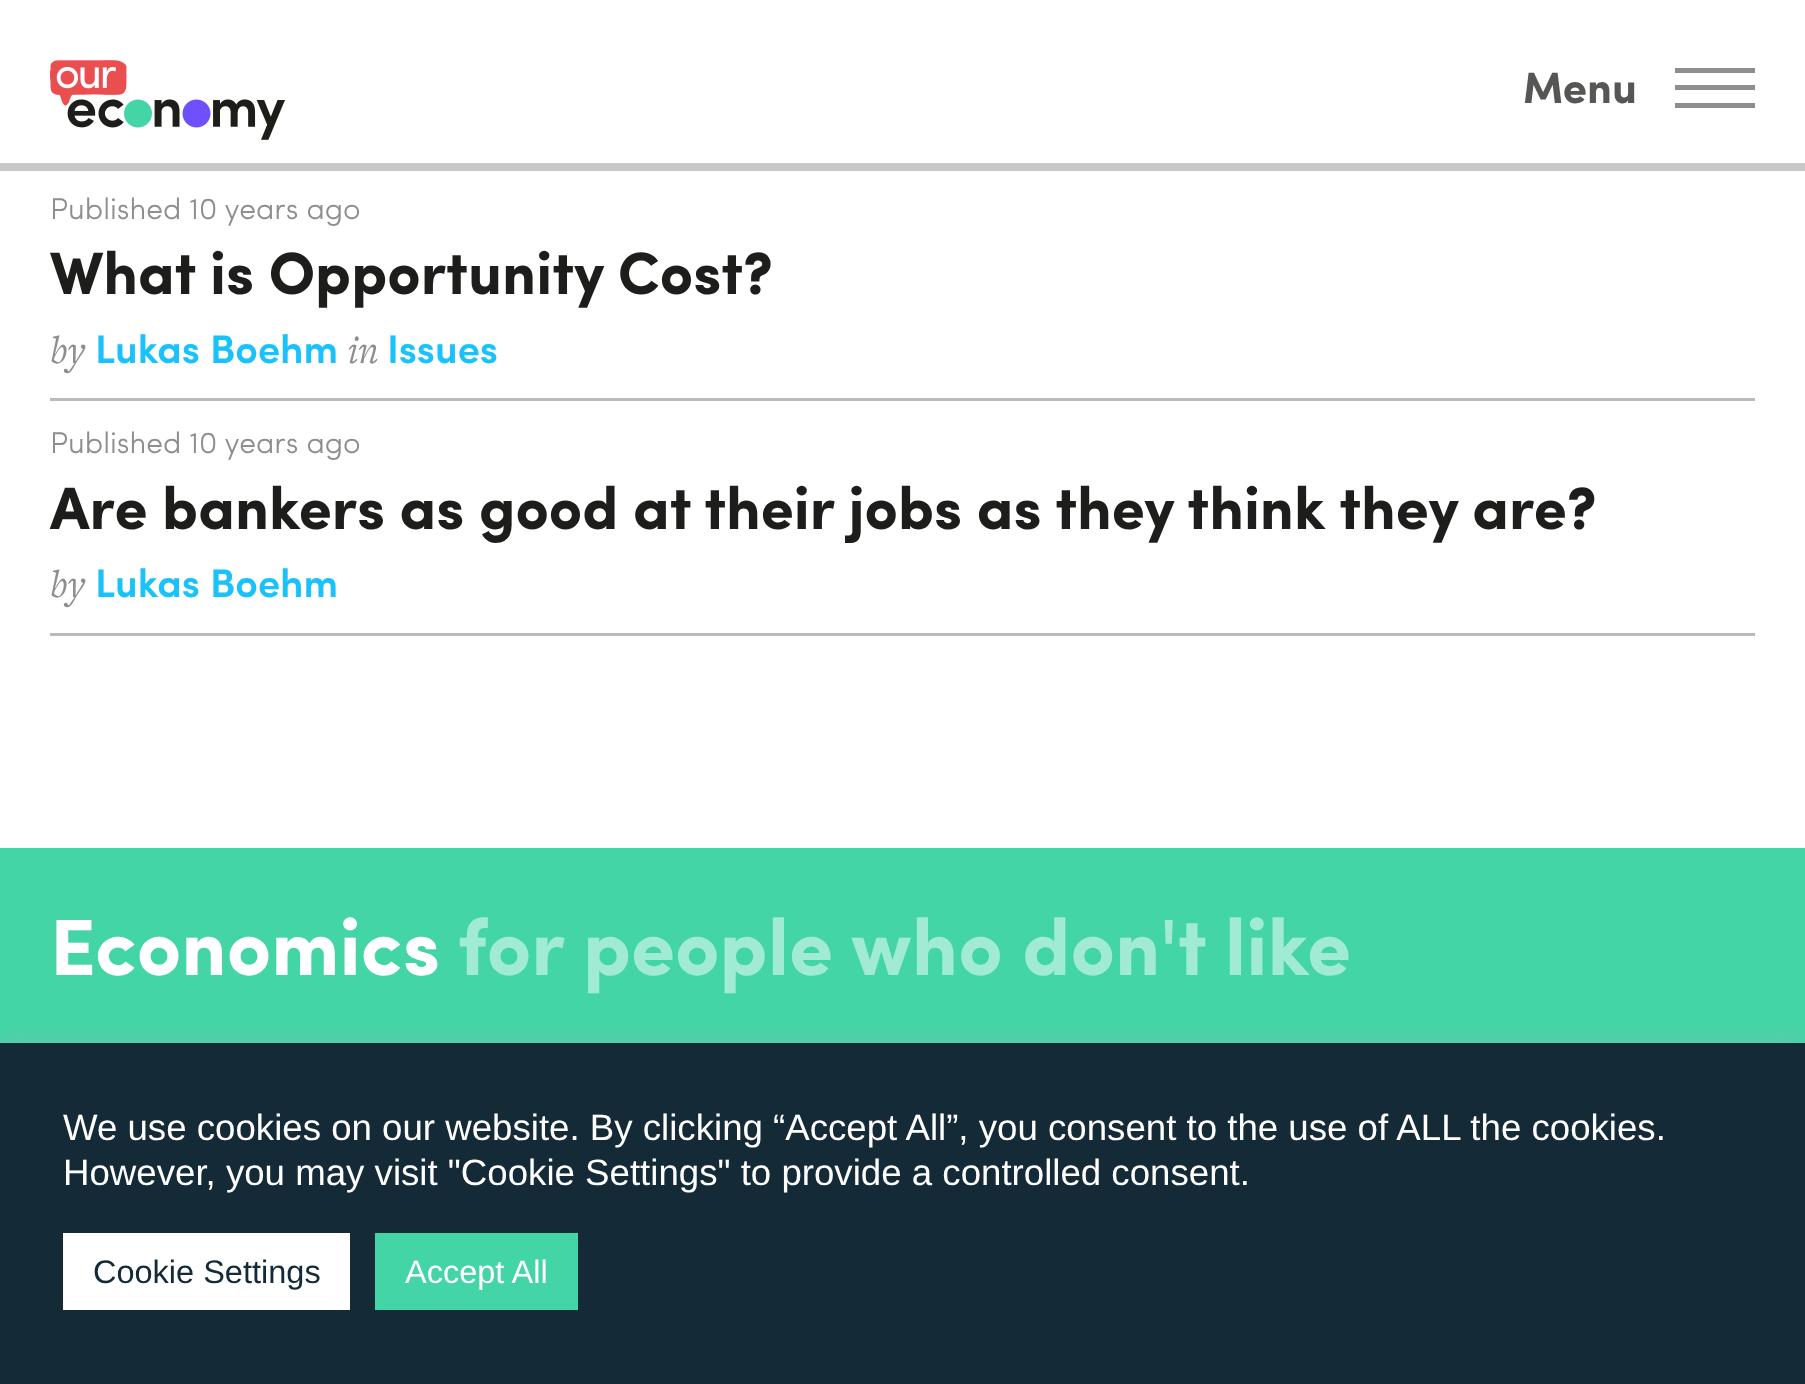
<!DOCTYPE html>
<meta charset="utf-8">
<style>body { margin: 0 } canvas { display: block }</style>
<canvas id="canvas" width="1805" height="1384"></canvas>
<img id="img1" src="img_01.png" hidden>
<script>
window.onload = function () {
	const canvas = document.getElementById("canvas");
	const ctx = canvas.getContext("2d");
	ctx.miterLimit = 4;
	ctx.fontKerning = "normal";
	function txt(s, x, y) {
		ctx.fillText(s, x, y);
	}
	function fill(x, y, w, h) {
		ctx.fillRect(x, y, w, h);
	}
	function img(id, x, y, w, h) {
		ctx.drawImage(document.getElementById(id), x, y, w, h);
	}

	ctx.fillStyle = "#FFFFFF";
	fill(0, 0, 1805, 1384);
	ctx.fillStyle = "#C8C8C8";
	fill(0, 163, 1805, 8);
	img("img1", 50, 60, 235, 80);
	ctx.fillStyle = "#8E8E8D";
	fill(1675, 68, 80, 5);
	fill(1675, 85, 80, 5);
	fill(1675, 103, 80, 5);
	ctx.fillStyle = "#BBBBBB";
	fill(50, 398, 1705, 3);
	fill(50, 633, 1705, 3);
	ctx.fillStyle = "#43D5A6";
	fill(0, 848, 1805, 195);
	ctx.fillStyle = "rgba(172, 171, 171, 0.3)";
	ctx.filter = "blur(12.5px)";
	ctx.beginPath();
	ctx.rect(0, 1040, 1805, 343);
	ctx.fill();
	ctx.filter = "none";
	ctx.fillStyle = "#142A37";
	fill(0, 1043, 1805, 341);
	ctx.fillStyle = "#FFFFFF";
	fill(63, 1233, 287, 77);
	ctx.fillStyle = "#43D5A6";
	fill(375, 1233, 203, 77);
	ctx.font = "bold 44px Sofia";
	ctx.fillStyle = "#565654";
	txt("Menu", 1523, 103);
	ctx.font = "300 30px Sofia";
	ctx.fillStyle = "#8E8E8D";
	txt("Published 10 years ago", 50, 219);
	ctx.font = "bold 60px Sofia";
	ctx.fillStyle = "#1D1D1B";
	txt("What is Opportunity Cost?", 50, 294);
	ctx.font = "italic 40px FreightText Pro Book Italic";
	ctx.fillStyle = "#8E8E8D";
	txt("by", 50, 363);
	ctx.font = "600 40px Sofia";
	ctx.fillStyle = "#19C2FA";
	txt("Lukas Boehm", 95, 363);
	ctx.font = "italic 40px FreightText Pro Book Italic";
	ctx.fillStyle = "#8E8E8D";
	txt("in", 348, 363);
	ctx.font = "600 40px Sofia";
	ctx.fillStyle = "#19C2FA";
	txt("Issues", 387, 363);
	ctx.font = "300 30px Sofia";
	ctx.fillStyle = "#8E8E8D";
	txt("Published 10 years ago", 50, 453);
	ctx.font = "bold 60px Sofia";
	ctx.fillStyle = "#1D1D1B";
	txt("Are bankers as good at their jobs as they think they are?", 50, 529);
	ctx.font = "italic 40px FreightText Pro Book Italic";
	ctx.fillStyle = "#8E8E8D";
	txt("by", 50, 597);
	ctx.font = "600 40px Sofia";
	ctx.fillStyle = "#19C2FA";
	txt("Lukas Boehm", 95, 597);
	ctx.font = "bold 80px Sofia";
	ctx.fillStyle = "#FFFFFF";
	txt("Economics", 50, 975);
	ctx.fillStyle = "#A1EAD3";
	txt("for people who don't like", 458, 975);
	ctx.font = "36.65px Liberation Sans";
	ctx.fillStyle = "#FFFFFF";
	txt("We use cookies on our website. By clicking “Accept All”, you consent to the use of ALL the cookies.", 63, 1140);
	txt("However, you may visit \"Cookie Settings\" to provide a controlled consent.", 63, 1185);
	ctx.font = "32.5px Liberation Sans";
	ctx.fillStyle = "#142A37";
	txt("Cookie Settings", 93, 1283);
	ctx.fillStyle = "#FFFFFF";
	txt("Accept All", 405, 1283);
};
</script>
